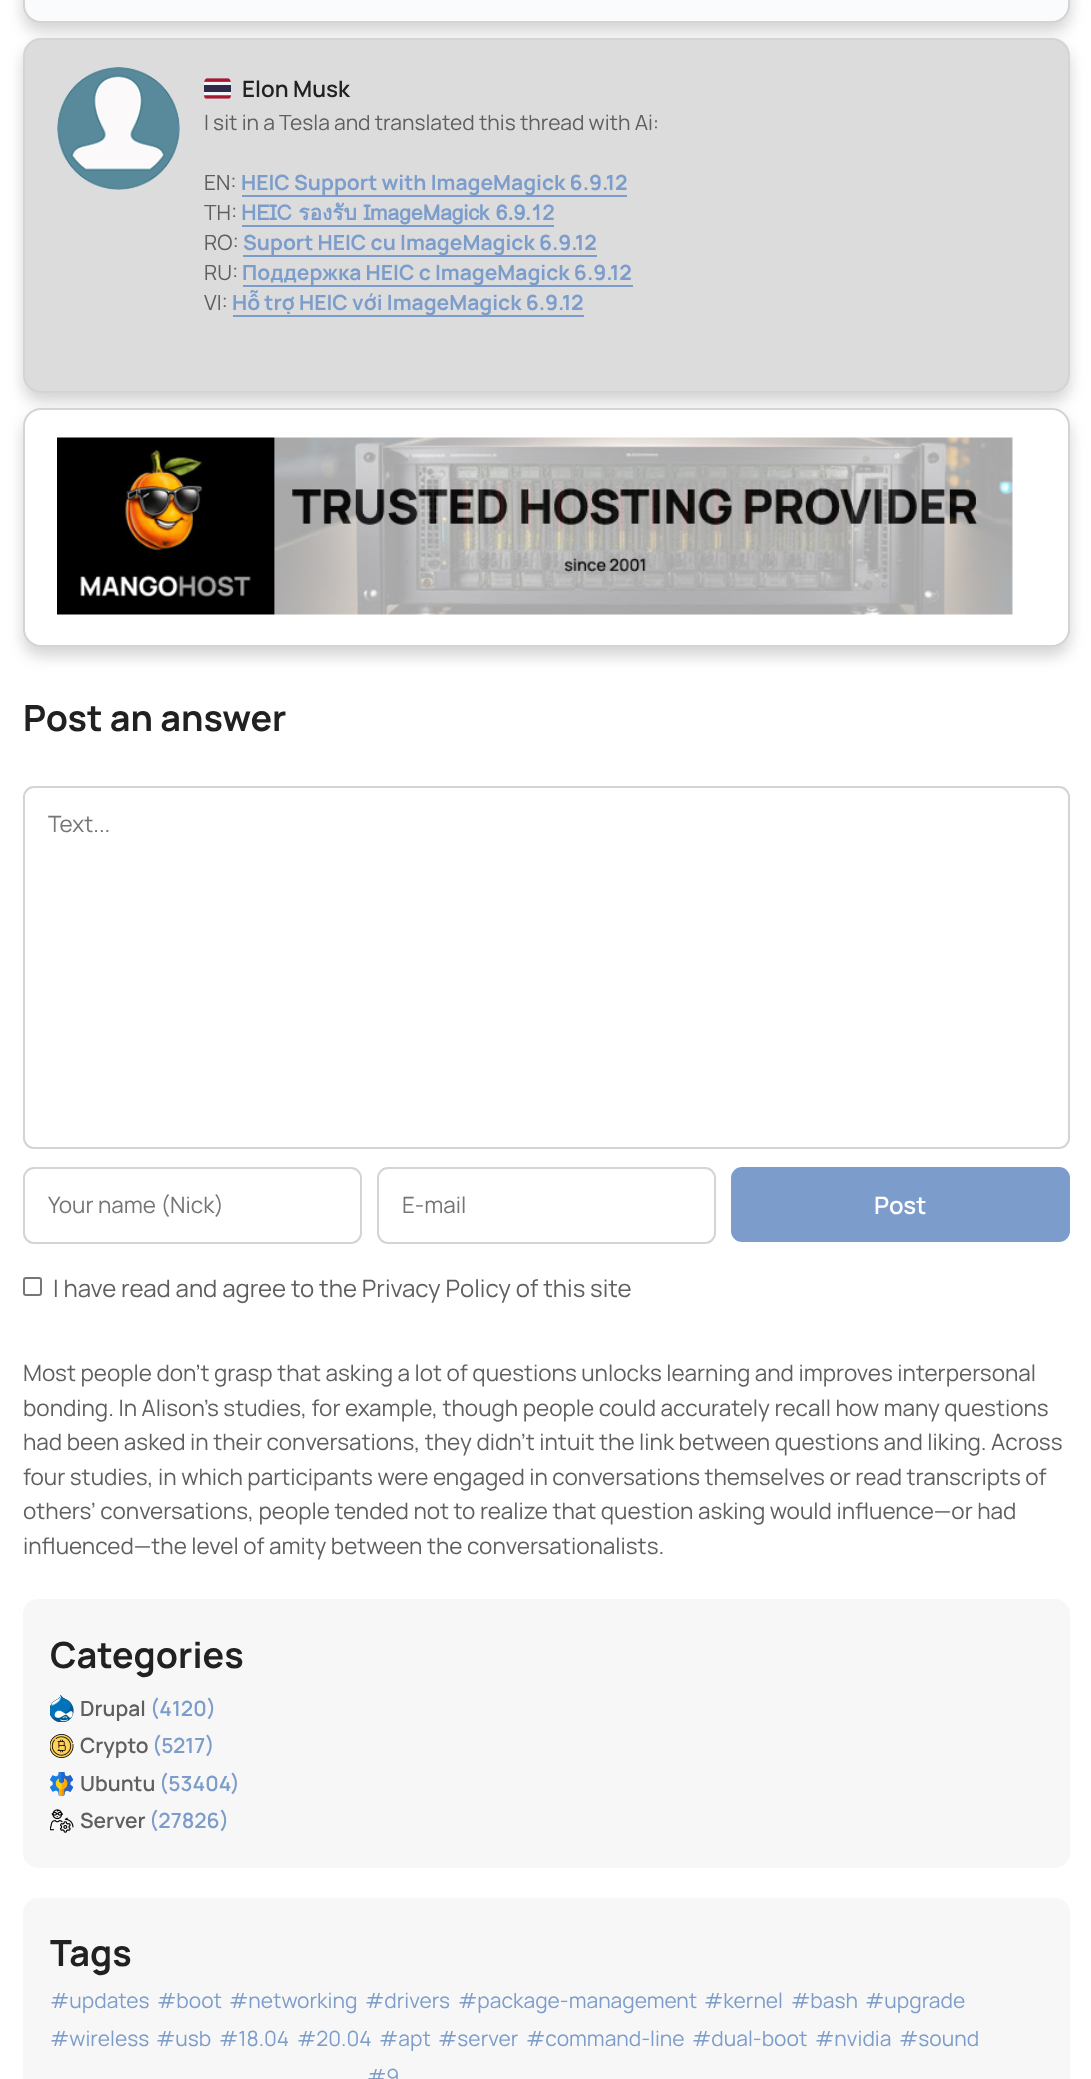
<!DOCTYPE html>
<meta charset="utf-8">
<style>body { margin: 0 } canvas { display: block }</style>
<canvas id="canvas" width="1091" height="2079"></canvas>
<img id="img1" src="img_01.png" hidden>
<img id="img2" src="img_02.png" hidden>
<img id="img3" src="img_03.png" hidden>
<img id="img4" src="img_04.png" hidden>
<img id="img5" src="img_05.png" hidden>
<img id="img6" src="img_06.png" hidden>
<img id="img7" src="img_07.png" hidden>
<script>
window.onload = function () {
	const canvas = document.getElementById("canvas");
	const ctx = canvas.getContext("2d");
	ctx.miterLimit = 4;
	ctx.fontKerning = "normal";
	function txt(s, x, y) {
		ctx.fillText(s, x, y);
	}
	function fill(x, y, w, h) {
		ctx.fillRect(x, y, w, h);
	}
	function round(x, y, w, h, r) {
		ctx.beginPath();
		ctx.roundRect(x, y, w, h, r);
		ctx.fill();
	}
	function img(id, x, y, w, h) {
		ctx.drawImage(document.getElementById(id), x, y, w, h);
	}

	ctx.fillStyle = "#FFFFFF";
	fill(0, 0, 1091, 2079);
	ctx.fillStyle = "#D4D4D4";
	ctx.filter = "blur(7.5px)";
	ctx.beginPath();
	ctx.roundRect(23, -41, 1047, 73, 18);
	ctx.fill();
	ctx.filter = "none";
	ctx.fillStyle = "#F9FBFC";
	ctx.beginPath();
	ctx.roundRect(24, -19, 1045, 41, 17);
	ctx.fill();
	ctx.strokeStyle = "#D4D4D4";
	ctx.lineWidth = 2;
	ctx.stroke();
	ctx.fillStyle = "#D4D4D4";
	ctx.filter = "blur(7.5px)";
	ctx.beginPath();
	ctx.roundRect(23, 47, 1047, 355, 18);
	ctx.fill();
	ctx.filter = "none";
	ctx.fillStyle = "#DCDCDC";
	ctx.beginPath();
	ctx.roundRect(24, 39, 1045, 353, 17);
	ctx.fill();
	ctx.stroke();
	img("img1", 57, 67, 123, 123);
	img("img2", 204, 78, 27, 21);
	ctx.fillStyle = "#7C9DCB";
	fill(242, 195, 385, 2);
	fill(242, 225, 312, 2);
	fill(243, 255, 354, 2);
	fill(243, 285, 390, 2);
	fill(233, 315, 351, 2);
	ctx.fillStyle = "#D4D4D4";
	ctx.filter = "blur(7.5px)";
	ctx.beginPath();
	ctx.roundRect(23, 417, 1047, 239, 18);
	ctx.fill();
	ctx.filter = "none";
	ctx.fillStyle = "#FFFFFF";
	ctx.beginPath();
	ctx.roundRect(24, 409, 1045, 237, 17);
	ctx.fill();
	ctx.stroke();
	img("img3", 57, 437, 956, 178);
	ctx.beginPath();
	ctx.roundRect(24, 787, 1045, 361, 10);
	ctx.stroke();
	ctx.beginPath();
	ctx.roundRect(24, 1168, 337, 75, 10);
	ctx.stroke();
	ctx.beginPath();
	ctx.roundRect(378, 1168, 337, 75, 10);
	ctx.stroke();
	ctx.fillStyle = "#7C9DCB";
	ctx.beginPath();
	ctx.roundRect(732, 1168, 337, 73, 10);
	ctx.fill();
	ctx.strokeStyle = "#7C9DCB";
	ctx.stroke();
	ctx.beginPath();
	ctx.roundRect(24, 1278, 17, 17, 2);
	ctx.strokeStyle = "#767676";
	ctx.stroke();
	ctx.fillStyle = "#F7F7F7";
	round(23, 1599, 1047, 269, 15);
	img("img4", 50, 1695, 24, 27);
	img("img5", 50, 1734, 24, 24);
	img("img6", 50, 1772, 23, 24);
	img("img7", 50, 1809, 24, 24);
	round(23, 1898, 1047, 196, 15);
	ctx.font = "600 22.5px Manrope";
	ctx.fillStyle = "#212121";
	txt("Elon Musk", 242, 97);
	ctx.font = "21px Manrope";
	ctx.fillStyle = "#5F5F5F";
	txt("I sit in a Tesla and translated this thread with Ai:", 204, 130);
	txt("EN:", 204, 190);
	ctx.font = "bold 21px Manrope";
	ctx.fillStyle = "#7C9DCB";
	txt("HEIC Support with ImageMagick 6.9.12", 241, 190);
	ctx.font = "21px Manrope";
	ctx.fillStyle = "#5F5F5F";
	txt("TH:", 204, 220);
	ctx.wordSpacing = "-0.5px";
	ctx.font = "bold 21px Loma";
	ctx.fillStyle = "#7C9DCB";
	txt("HEIC รองรับ ImageMagick 6.9.12", 241, 220);
	ctx.wordSpacing = "0px";
	ctx.font = "21px Manrope";
	ctx.fillStyle = "#5F5F5F";
	txt("RO:", 204, 250);
	ctx.font = "bold 21px Manrope";
	ctx.fillStyle = "#7C9DCB";
	txt("Suport HEIC cu ImageMagick 6.9.12", 243, 250);
	ctx.font = "21px Manrope";
	ctx.fillStyle = "#5F5F5F";
	txt("RU:", 204, 280);
	ctx.font = "bold 21px Manrope";
	ctx.fillStyle = "#7C9DCB";
	txt("Поддержка HEIC с ImageMagick 6.9.12", 242, 280);
	ctx.font = "21px Manrope";
	ctx.fillStyle = "#5F5F5F";
	txt("VI:", 204, 310);
	ctx.font = "bold 21px Manrope";
	ctx.fillStyle = "#7C9DCB";
	txt("Hỗ trợ HEIC với ImageMagick 6.9.12", 232, 310);
	ctx.font = "bold 36px Manrope";
	ctx.fillStyle = "#212121";
	txt("Post an answer", 23, 731);
	ctx.font = "22.5px Manrope";
	ctx.fillStyle = "#757575";
	txt("Text...", 48, 832);
	txt("Your name (Nick)", 48, 1213);
	txt("E-mail", 402, 1213);
	ctx.font = "600 24px Manrope";
	ctx.fillStyle = "#FFFFFF";
	txt("Post", 874, 1214);
	ctx.font = "24px Manrope";
	ctx.fillStyle = "#5F5F5F";
	txt("I have read and agree to the Privacy Policy of this site", 53, 1297);
	ctx.font = "22.5px Manrope";
	txt("Most people don’t grasp that asking a lot of questions unlocks learning and improves interpersonal", 23, 1381);
	txt("bonding. In Alison’s studies, for example, though people could accurately recall how many questions", 23, 1416);
	txt("had been asked in their conversations, they didn’t intuit the link between questions and liking. Across", 23, 1450);
	txt("four studies, in which participants were engaged in conversations themselves or read transcripts of", 23, 1485);
	txt("others’ conversations, people tended not to realize that question asking would influence—or had", 23, 1519);
	txt("influenced—the level of amity between the conversationalists.", 23, 1554);
	ctx.font = "bold 36px Manrope";
	ctx.fillStyle = "#212121";
	txt("Categories", 50, 1668);
	ctx.font = "600 21px Manrope";
	ctx.fillStyle = "#5F5F5F";
	txt("Drupal", 80, 1716);
	ctx.fillStyle = "#7C9DCB";
	txt("(4120)", 150, 1716);
	ctx.fillStyle = "#5F5F5F";
	txt("Crypto", 80, 1753);
	ctx.fillStyle = "#7C9DCB";
	txt("(5217)", 152, 1753);
	ctx.fillStyle = "#5F5F5F";
	txt("Ubuntu", 80, 1791);
	ctx.fillStyle = "#7C9DCB";
	txt("(53404)", 159, 1791);
	ctx.fillStyle = "#5F5F5F";
	txt("Server", 80, 1828);
	ctx.fillStyle = "#7C9DCB";
	txt("(27826)", 149, 1828);
	ctx.font = "bold 36px Manrope";
	ctx.fillStyle = "#212121";
	txt("Tags", 50, 1966);
	ctx.font = "21px Manrope";
	ctx.fillStyle = "#7C9DCB";
	txt("#updates", 50, 2008);
	txt("#boot", 157, 2008);
	txt("#networking", 229, 2008);
	txt("#drivers", 365, 2008);
	txt("#package-management", 458, 2008);
	txt("#kernel", 704, 2008);
	txt("#bash", 791, 2008);
	txt("#upgrade", 865, 2008);
	txt("#wireless", 50, 2046);
	txt("#usb", 156, 2046);
	txt("#18.04", 219, 2046);
	txt("#20.04", 297, 2046);
	txt("#apt", 379, 2046);
	txt("#server", 438, 2046);
	txt("#command-line", 526, 2046);
	txt("#dual-boot", 692, 2046);
	txt("#nvidia", 815, 2046);
	txt("#sound", 899, 2046);
	txt("#9", 367, 2084);
};
</script>
